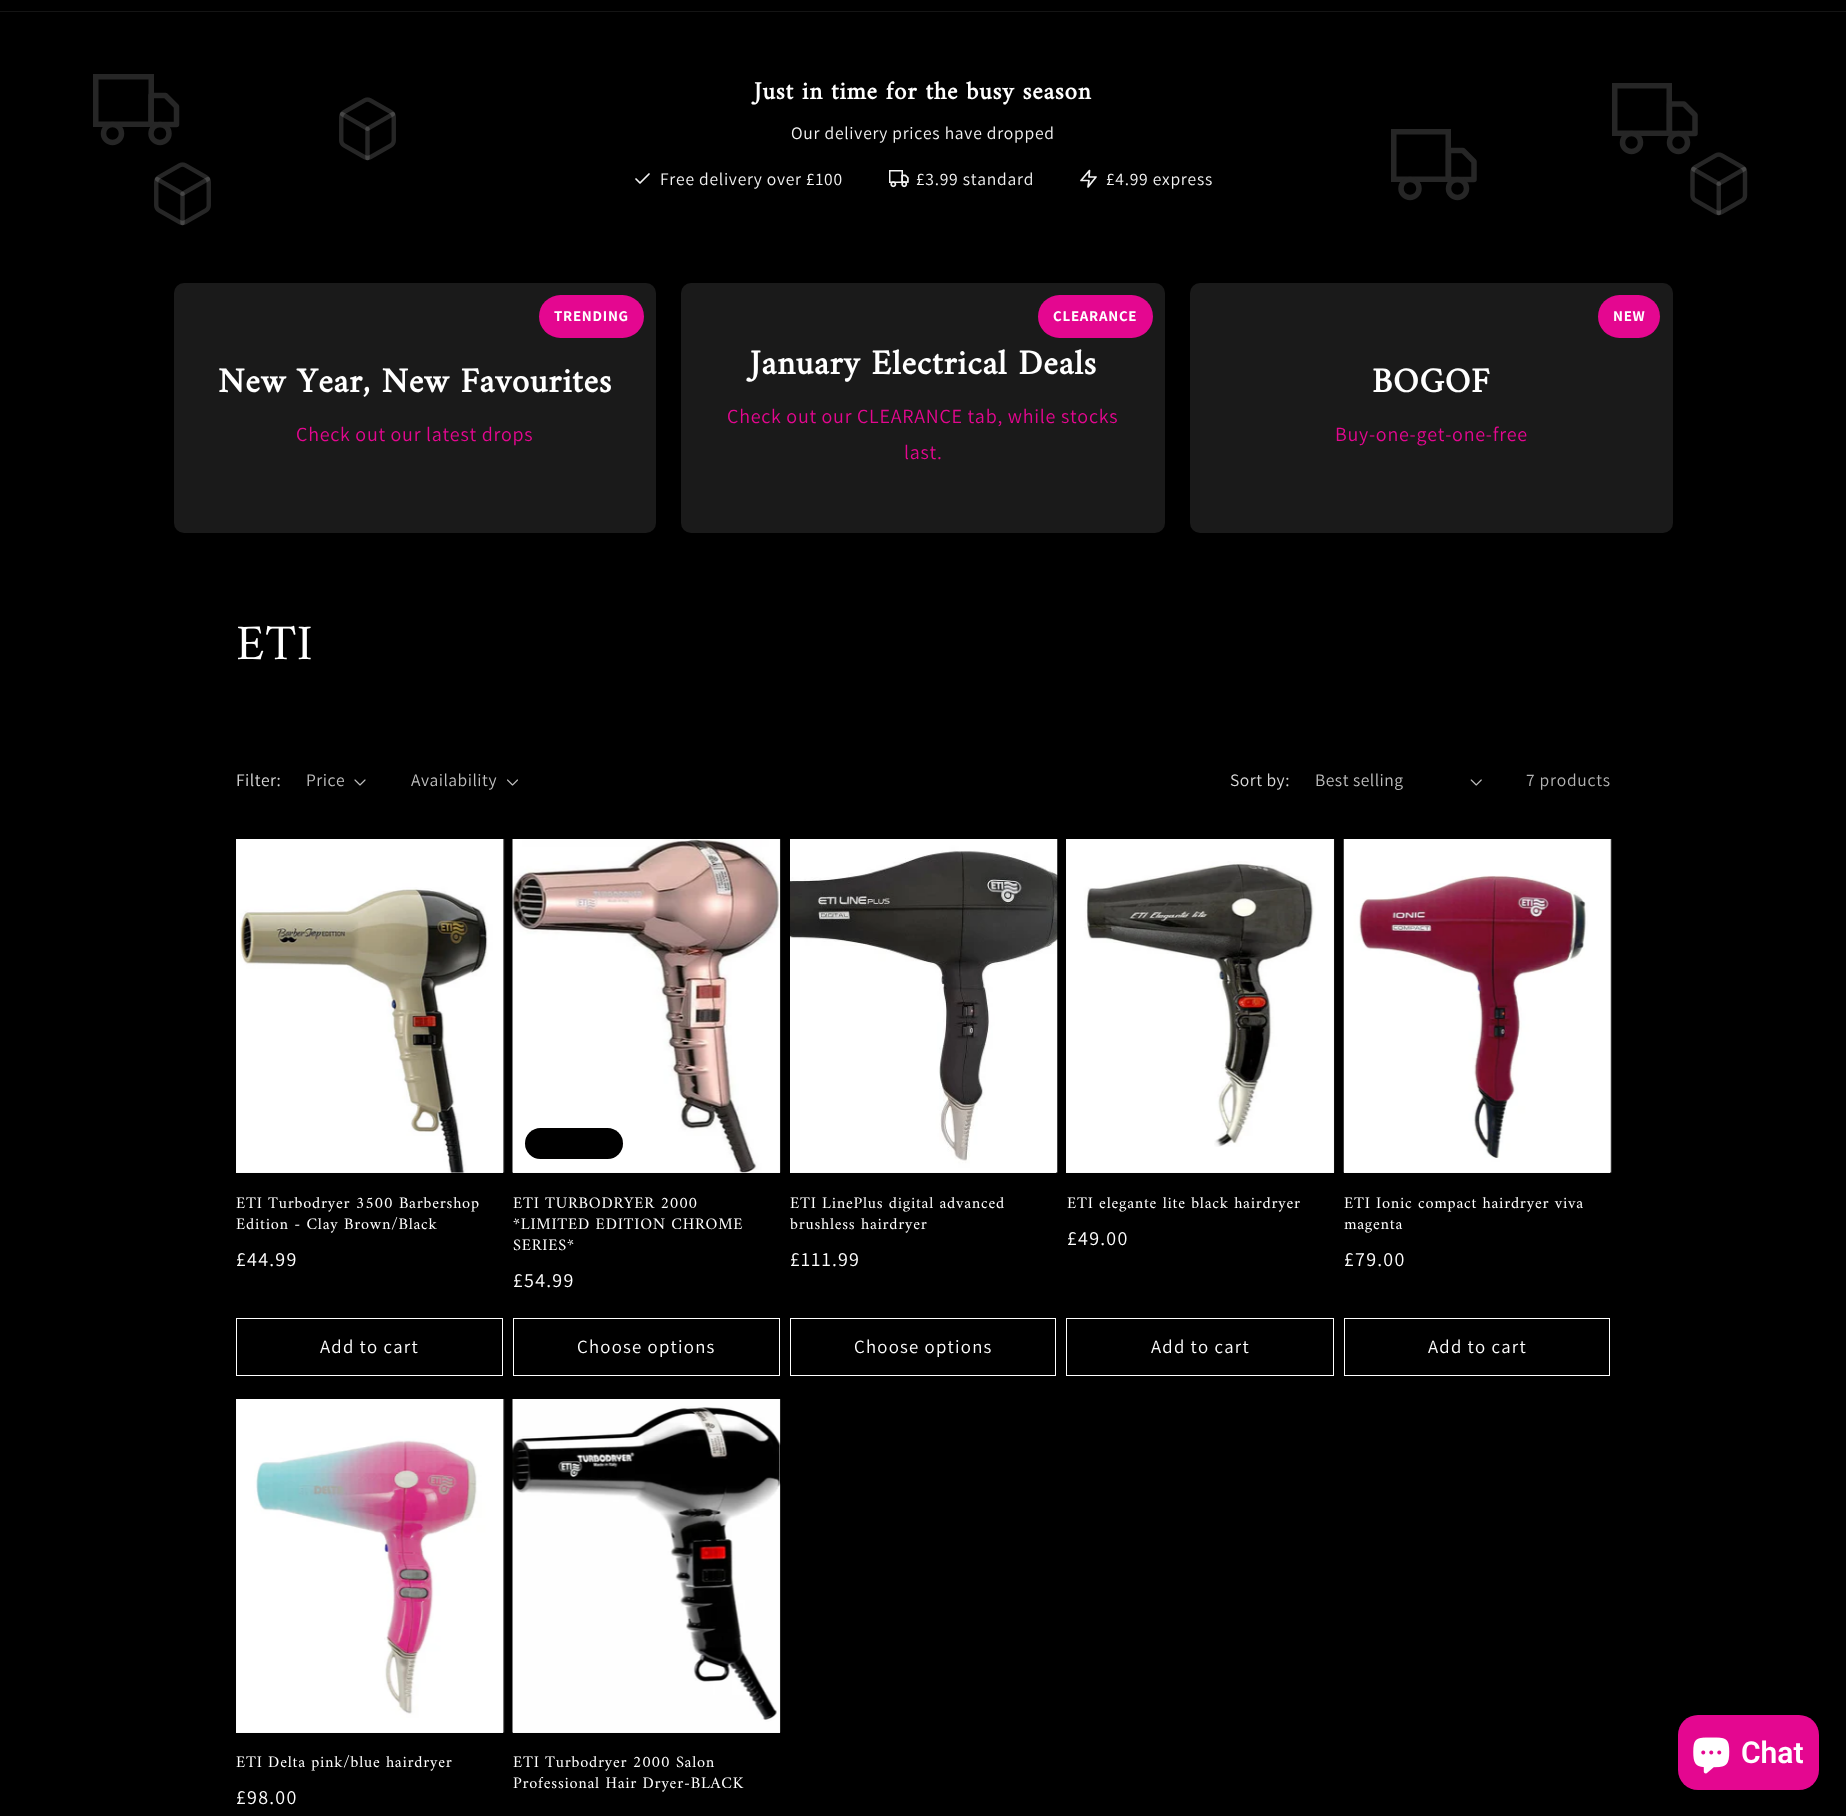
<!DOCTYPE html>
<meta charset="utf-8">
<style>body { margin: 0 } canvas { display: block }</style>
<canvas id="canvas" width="1846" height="1816"></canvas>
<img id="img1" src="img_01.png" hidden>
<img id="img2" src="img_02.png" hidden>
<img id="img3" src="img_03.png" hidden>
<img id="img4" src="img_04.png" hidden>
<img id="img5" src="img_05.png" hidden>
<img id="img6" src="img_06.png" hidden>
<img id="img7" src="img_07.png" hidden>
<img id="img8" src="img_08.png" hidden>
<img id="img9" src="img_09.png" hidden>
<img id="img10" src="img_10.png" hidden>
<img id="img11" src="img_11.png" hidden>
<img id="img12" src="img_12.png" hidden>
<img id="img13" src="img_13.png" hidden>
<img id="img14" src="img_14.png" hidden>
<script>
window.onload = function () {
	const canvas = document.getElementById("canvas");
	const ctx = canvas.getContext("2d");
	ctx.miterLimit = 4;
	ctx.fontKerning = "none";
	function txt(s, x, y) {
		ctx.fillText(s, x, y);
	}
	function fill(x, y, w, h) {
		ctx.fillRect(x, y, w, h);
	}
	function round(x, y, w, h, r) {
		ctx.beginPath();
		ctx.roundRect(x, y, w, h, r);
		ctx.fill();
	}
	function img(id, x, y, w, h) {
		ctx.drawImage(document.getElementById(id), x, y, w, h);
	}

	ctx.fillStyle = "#000000";
	fill(0, 0, 1846, 1816);
	ctx.fillStyle = "#141414";
	fill(0, 11, 1846, 1);
	ctx.strokeStyle = "#262626";
	ctx.lineWidth = 5.5;
	ctx.strokeRect(95.75, 76.75, 55.5, 47.5);
	ctx.beginPath();
	ctx.moveTo(151, 95.5);
	ctx.lineTo(165.5, 95.5);
	ctx.lineTo(176.5, 106.5);
	ctx.lineTo(176.5, 124.5);
	ctx.lineTo(151, 124.5);
	ctx.closePath();
	ctx.lineCap = "round";
	ctx.lineJoin = "round";
	ctx.stroke();
	ctx.beginPath();
	ctx.arc(112.5, 133.5, 9, 0, Math.PI * 2);
	ctx.stroke();
	ctx.beginPath();
	ctx.arc(160, 133.5, 9, 0, Math.PI * 2);
	ctx.stroke();
	img("img1", 154, 162, 57, 64);
	img("img1", 339, 97, 57, 64);
	ctx.lineJoin = "miter";
	ctx.strokeRect(1393.75, 131.75, 54.5, 47.5);
	ctx.beginPath();
	ctx.moveTo(1448.5, 150.5);
	ctx.lineTo(1463, 150.5);
	ctx.lineTo(1474, 161.5);
	ctx.lineTo(1474, 179.5);
	ctx.lineTo(1448.5, 179.5);
	ctx.closePath();
	ctx.lineJoin = "round";
	ctx.stroke();
	ctx.beginPath();
	ctx.arc(1410, 188.5, 9, 0, Math.PI * 2);
	ctx.stroke();
	ctx.beginPath();
	ctx.arc(1457.5, 188.5, 9, 0, Math.PI * 2);
	ctx.stroke();
	ctx.lineJoin = "miter";
	ctx.strokeRect(1614.75, 85.75, 54.5, 47.5);
	ctx.beginPath();
	ctx.moveTo(1669.5, 104);
	ctx.lineTo(1684, 104);
	ctx.lineTo(1695, 115);
	ctx.lineTo(1695, 133.5);
	ctx.lineTo(1669.5, 133.5);
	ctx.closePath();
	ctx.lineJoin = "round";
	ctx.stroke();
	ctx.beginPath();
	ctx.arc(1631.5, 142.5, 9, 0, Math.PI * 2);
	ctx.stroke();
	ctx.beginPath();
	ctx.arc(1678.5, 142.5, 9, 0, Math.PI * 2);
	ctx.stroke();
	img("img2", 1690, 152, 58, 64);
	ctx.beginPath();
	ctx.moveTo(649, 174);
	ctx.lineTo(640, 183);
	ctx.lineTo(636, 179);
	ctx.strokeStyle = "#F3F3F3";
	ctx.lineWidth = 1.7;
	ctx.stroke();
	img("img3", 889, 170, 20, 18);
	ctx.beginPath();
	ctx.moveTo(1089.5, 170.5);
	ctx.lineTo(1081, 180.5);
	ctx.lineTo(1089, 180.5);
	ctx.lineTo(1088, 187);
	ctx.lineTo(1096, 177);
	ctx.lineTo(1089, 177);
	ctx.closePath();
	ctx.stroke();
	ctx.fillStyle = "#1A1A1A";
	round(174, 283, 482, 250, 10);
	ctx.fillStyle = "#E40790";
	round(539, 295, 105, 43, 21.5);
	ctx.fillStyle = "#1A1A1A";
	round(681, 283, 484, 250, 10);
	ctx.fillStyle = "#E40790";
	round(1038, 295, 115, 43, 21.5);
	ctx.fillStyle = "#1A1A1A";
	round(1190, 283, 483, 250, 10);
	ctx.fillStyle = "#E40790";
	round(1598, 295, 62, 43, 21.5);
	img("img4", 354, 779, 12, 7);
	img("img5", 507, 779, 11, 7);
	img("img6", 1470, 779, 12, 7);
	ctx.fillStyle = "#F3F3F3";
	fill(236, 839, 267, 334);
	img("img7", 236, 839, 269, 334);
	ctx.strokeStyle = "#FFFFFF";
	ctx.lineWidth = 1;
	ctx.lineJoin = "miter";
	ctx.strokeRect(236.5, 1318.5, 266, 57);
	fill(513, 839, 267, 334);
	img("img8", 512, 839, 269, 334);
	ctx.fillStyle = "#000000";
	round(525, 1128, 98, 31, 15.5);
	ctx.beginPath();
	ctx.roundRect(525.5, 1128.5, 97, 30, 15);
	ctx.strokeStyle = "rgba(5, 2, 2, 0.1)";
	ctx.stroke();
	ctx.strokeStyle = "#FFFFFF";
	ctx.strokeRect(513.5, 1318.5, 266, 57);
	ctx.fillStyle = "#F3F3F3";
	fill(790, 1172, 266, 1);
	img("img9", 790, 839, 268, 334);
	ctx.strokeRect(790.5, 1318.5, 265, 57);
	fill(1066, 839, 268, 334);
	img("img10", 1066, 839, 269, 334);
	ctx.strokeRect(1066.5, 1318.5, 267, 57);
	fill(1344, 1172, 266, 1);
	img("img11", 1343, 839, 269, 334);
	ctx.strokeRect(1344.5, 1318.5, 265, 57);
	fill(236, 1399, 267, 334);
	img("img12", 236, 1399, 269, 334);
	fill(513, 1399, 267, 334);
	img("img13", 512, 1399, 269, 334);
	ctx.fillStyle = "#E40790";
	round(1678, 1715, 141, 75, 20);
	img("img14", 1693, 1737, 37, 37);
	ctx.letterSpacing = "0.75px";
	ctx.font = "bold 25px Amiri";
	ctx.fillStyle = "#FFFFFF";
	txt("Just in time for the busy season", 754, 99);
	ctx.font = "17.5px Assistant";
	ctx.fillStyle = "#F3F3F3";
	txt("Our delivery prices have dropped", 791, 139);
	txt("Free delivery over £100", 660, 185);
	txt("£3.99 standard", 916, 185);
	txt("£4.99 express", 1106, 185);
	ctx.font = "bold 15px Assistant";
	ctx.fillStyle = "#FFFFFF";
	txt("TRENDING", 554, 321);
	ctx.font = "bold 35px Amiri";
	txt("New Year, New Favourites", 218, 392);
	ctx.font = "20px Assistant";
	ctx.fillStyle = "#E40790";
	txt("Check out our latest drops", 296, 441);
	ctx.font = "bold 15px Assistant";
	ctx.fillStyle = "#FFFFFF";
	txt("CLEARANCE", 1053, 321);
	ctx.font = "bold 35px Amiri";
	txt("January Electrical Deals", 750, 374);
	ctx.font = "20px Assistant";
	ctx.fillStyle = "#E40790";
	txt("Check out our CLEARANCE tab, while stocks", 727, 423);
	txt("last.", 904, 459);
	ctx.font = "bold 15px Assistant";
	ctx.fillStyle = "#FFFFFF";
	txt("NEW", 1613, 321);
	ctx.font = "bold 35px Amiri";
	txt("BOGOF", 1372, 392);
	ctx.font = "20px Assistant";
	ctx.fillStyle = "#E40790";
	txt("Buy-one-get-one-free", 1335, 441);
	ctx.font = "50px Amiri";
	ctx.fillStyle = "#FFFFFF";
	txt("ETI", 236, 659);
	ctx.letterSpacing = "0.5px";
	ctx.font = "17.5px Assistant";
	ctx.fillStyle = "#D9D9D9";
	txt("Filter:", 236, 786);
	ctx.fillStyle = "#BFBFBF";
	txt("Price", 306, 786);
	txt("Availability", 411, 786);
	ctx.fillStyle = "#D9D9D9";
	txt("Sort by:", 1230, 786);
	ctx.fillStyle = "#BFBFBF";
	txt("Best selling", 1315, 786);
	ctx.letterSpacing = "0.75px";
	ctx.fillStyle = "#B3B3B3";
	txt("7 products", 1526, 786);
	ctx.font = "16.25px Amiri";
	ctx.fillStyle = "#FFFFFF";
	txt("ETI Turbodryer 3500 Barbershop", 236, 1208);
	txt("Edition - Clay Brown/Black", 236, 1229);
	ctx.letterSpacing = "1.25px";
	ctx.font = "20px Assistant";
	txt("£44.99", 236, 1266);
	ctx.font = "18.75px Assistant";
	txt("Add to cart", 320, 1353);
	ctx.letterSpacing = "0.75px";
	ctx.font = "16.25px Amiri";
	txt("ETI TURBODRYER 2000", 513, 1208);
	txt("*LIMITED EDITION CHROME", 513, 1229);
	txt("SERIES*", 513, 1250);
	ctx.letterSpacing = "1.25px";
	ctx.font = "20px Assistant";
	txt("£54.99", 513, 1287);
	ctx.font = "18.75px Assistant";
	txt("Choose options", 577, 1353);
	ctx.letterSpacing = "0.75px";
	ctx.font = "16.25px Amiri";
	txt("ETI LinePlus digital advanced", 790, 1208);
	txt("brushless hairdryer", 790, 1229);
	ctx.letterSpacing = "1.25px";
	ctx.font = "20px Assistant";
	txt("£111.99", 790, 1266);
	ctx.font = "18.75px Assistant";
	txt("Choose options", 854, 1353);
	ctx.letterSpacing = "0.75px";
	ctx.font = "16.25px Amiri";
	txt("ETI elegante lite black hairdryer", 1067, 1208);
	ctx.letterSpacing = "1.25px";
	ctx.font = "20px Assistant";
	txt("£49.00", 1067, 1245);
	ctx.font = "18.75px Assistant";
	txt("Add to cart", 1151, 1353);
	ctx.letterSpacing = "0.75px";
	ctx.font = "16.25px Amiri";
	txt("ETI Ionic compact hairdryer viva", 1344, 1208);
	txt("magenta", 1344, 1229);
	ctx.letterSpacing = "1.25px";
	ctx.font = "20px Assistant";
	txt("£79.00", 1344, 1266);
	ctx.font = "18.75px Assistant";
	txt("Add to cart", 1428, 1353);
	ctx.letterSpacing = "0.75px";
	ctx.font = "16.25px Amiri";
	txt("ETI Delta pink/blue hairdryer", 236, 1767);
	ctx.letterSpacing = "1.25px";
	ctx.font = "20px Assistant";
	txt("£98.00", 236, 1804);
	ctx.letterSpacing = "0.75px";
	ctx.font = "16.25px Amiri";
	txt("ETI Turbodryer 2000 Salon", 513, 1767);
	txt("Professional Hair Dryer-BLACK", 513, 1788);
	ctx.letterSpacing = "0px";
	ctx.font = "600 30px Roboto";
	txt("Chat", 1741, 1763);
};
</script>
